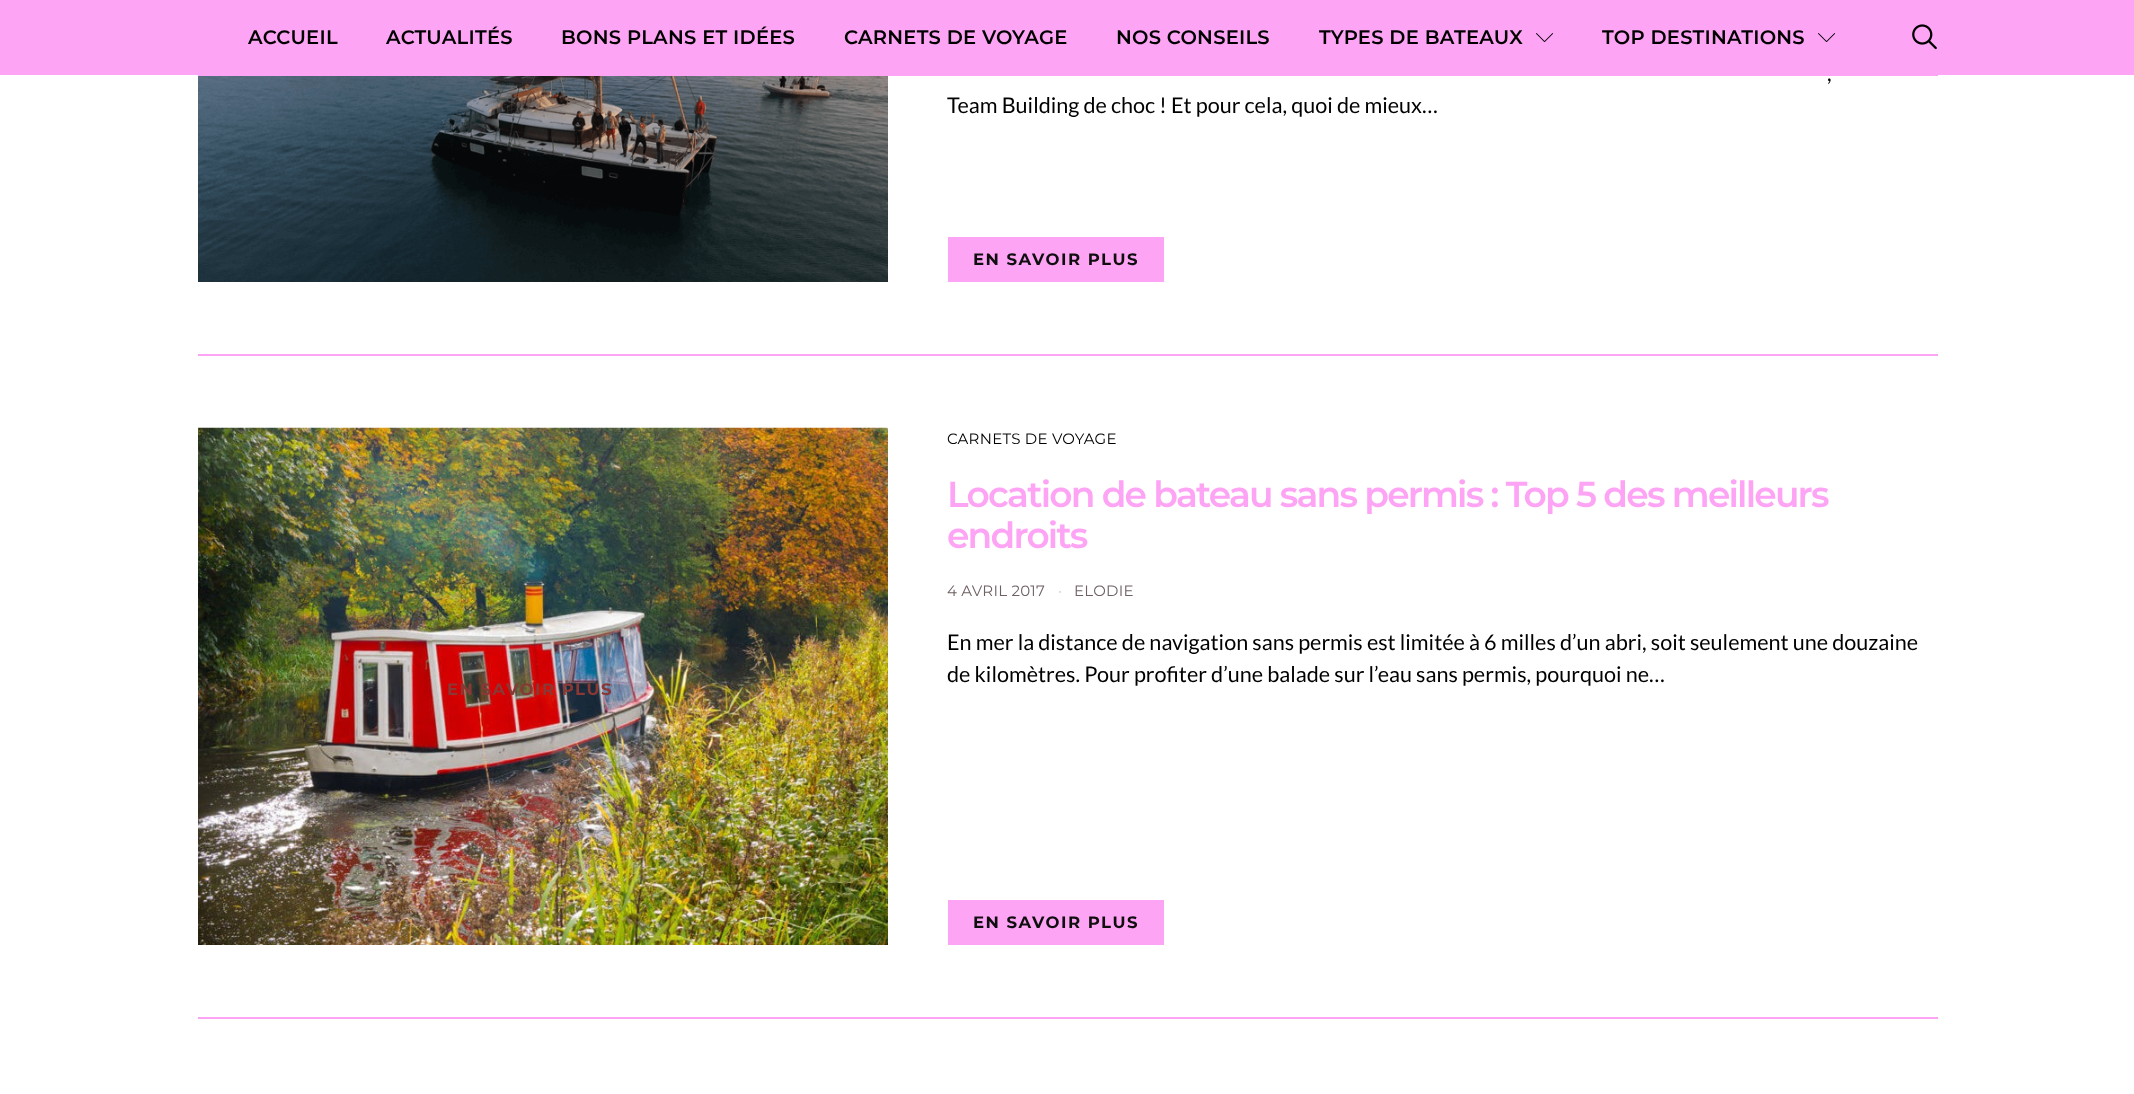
<!DOCTYPE html>
<meta charset="utf-8">
<style>body { margin: 0 } canvas { display: block }</style>
<canvas id="canvas" width="2134" height="1094"></canvas>
<img id="img1" src="img_01.png" hidden>
<img id="img2" src="img_02.png" hidden>
<img id="img3" src="img_03.png" hidden>
<img id="img4" src="img_04.png" hidden>
<script>
window.onload = function () {
	const canvas = document.getElementById("canvas");
	const ctx = canvas.getContext("2d");
	ctx.miterLimit = 4;
	ctx.fontKerning = "normal";
	function txt(s, x, y) {
		ctx.fillText(s, x, y);
	}
	function fill(x, y, w, h) {
		ctx.fillRect(x, y, w, h);
	}
	function img(id, x, y, w, h) {
		ctx.drawImage(document.getElementById(id), x, y, w, h);
	}

	ctx.fillStyle = "#FFFFFF";
	fill(0, 0, 2134, 1094);
	ctx.fillStyle = "#FEA4F5";
	fill(0, 0, 2134, 75);
	fill(198, 75, 1740, 1);
	img("img1", 1536, 33, 18, 9);
	img("img1", 1818, 33, 18, 9);
	img("img2", 1912, 24, 25, 26);
	img("img3", 198, 76, 690, 206);
	fill(948, 237, 216, 45);
	fill(198, 354, 1740, 2);
	img("img4", 198, 427, 690, 518);
	fill(948, 900, 216, 45);
	fill(198, 1017, 1740, 2);
	ctx.letterSpacing = "0.25px";
	ctx.font = "600 19.5px Montserrat";
	ctx.fillStyle = "#000000";
	txt("ACCUEIL", 248, 44);
	txt("ACTUALITÉS", 386, 44);
	txt("BONS PLANS ET IDÉES", 561, 44);
	txt("CARNETS DE VOYAGE", 844, 44);
	txt("NOS CONSEILS", 1116, 44);
	txt("TYPES DE BATEAUX", 1319, 44);
	txt("TOP DESTINATIONS", 1602, 44);
	ctx.letterSpacing = "0px";
	ctx.font = "21.6px Lato";
	txt(",", 1827, 81);
	txt("Team Building de choc ! Et pour cela, quoi de mieux…", 947, 113);
	ctx.letterSpacing = "1.5px";
	ctx.font = "bold 16.5px Montserrat";
	ctx.fillStyle = "#0F0F0F";
	txt("EN SAVOIR PLUS", 973, 265);
	ctx.fillStyle = "#893836";
	txt("EN SAVOIR PLUS", 447, 695);
	ctx.letterSpacing = "0.25px";
	ctx.font = "15px Montserrat";
	ctx.fillStyle = "#000000";
	txt("CARNETS DE VOYAGE", 947, 444);
	ctx.letterSpacing = "-1.8px";
	ctx.font = "600 36px Montserrat";
	ctx.fillStyle = "#FEA4F5";
	txt("Location de bateau sans permis : Top 5 des meilleurs", 947, 507);
	txt("endroits", 947, 548);
	ctx.letterSpacing = "0.25px";
	ctx.font = "15px Montserrat";
	ctx.fillStyle = "#6F6161";
	txt("4 AVRIL 2017", 947, 596);
	ctx.fillStyle = "#C9C9C9";
	txt("·", 1058, 596);
	ctx.fillStyle = "#6F6161";
	txt("ELODIE", 1074, 596);
	ctx.letterSpacing = "0px";
	ctx.font = "21.6px Lato";
	ctx.fillStyle = "#000000";
	txt("En mer la distance de navigation sans permis est limitée à 6 milles d’un abri, soit seulement une douzaine", 947, 650);
	txt("de kilomètres. Pour profiter d’une balade sur l’eau sans permis, pourquoi ne…", 947, 682);
	ctx.letterSpacing = "1.5px";
	ctx.font = "bold 16.5px Montserrat";
	ctx.fillStyle = "#0F0F0F";
	txt("EN SAVOIR PLUS", 973, 928);
};
</script>
